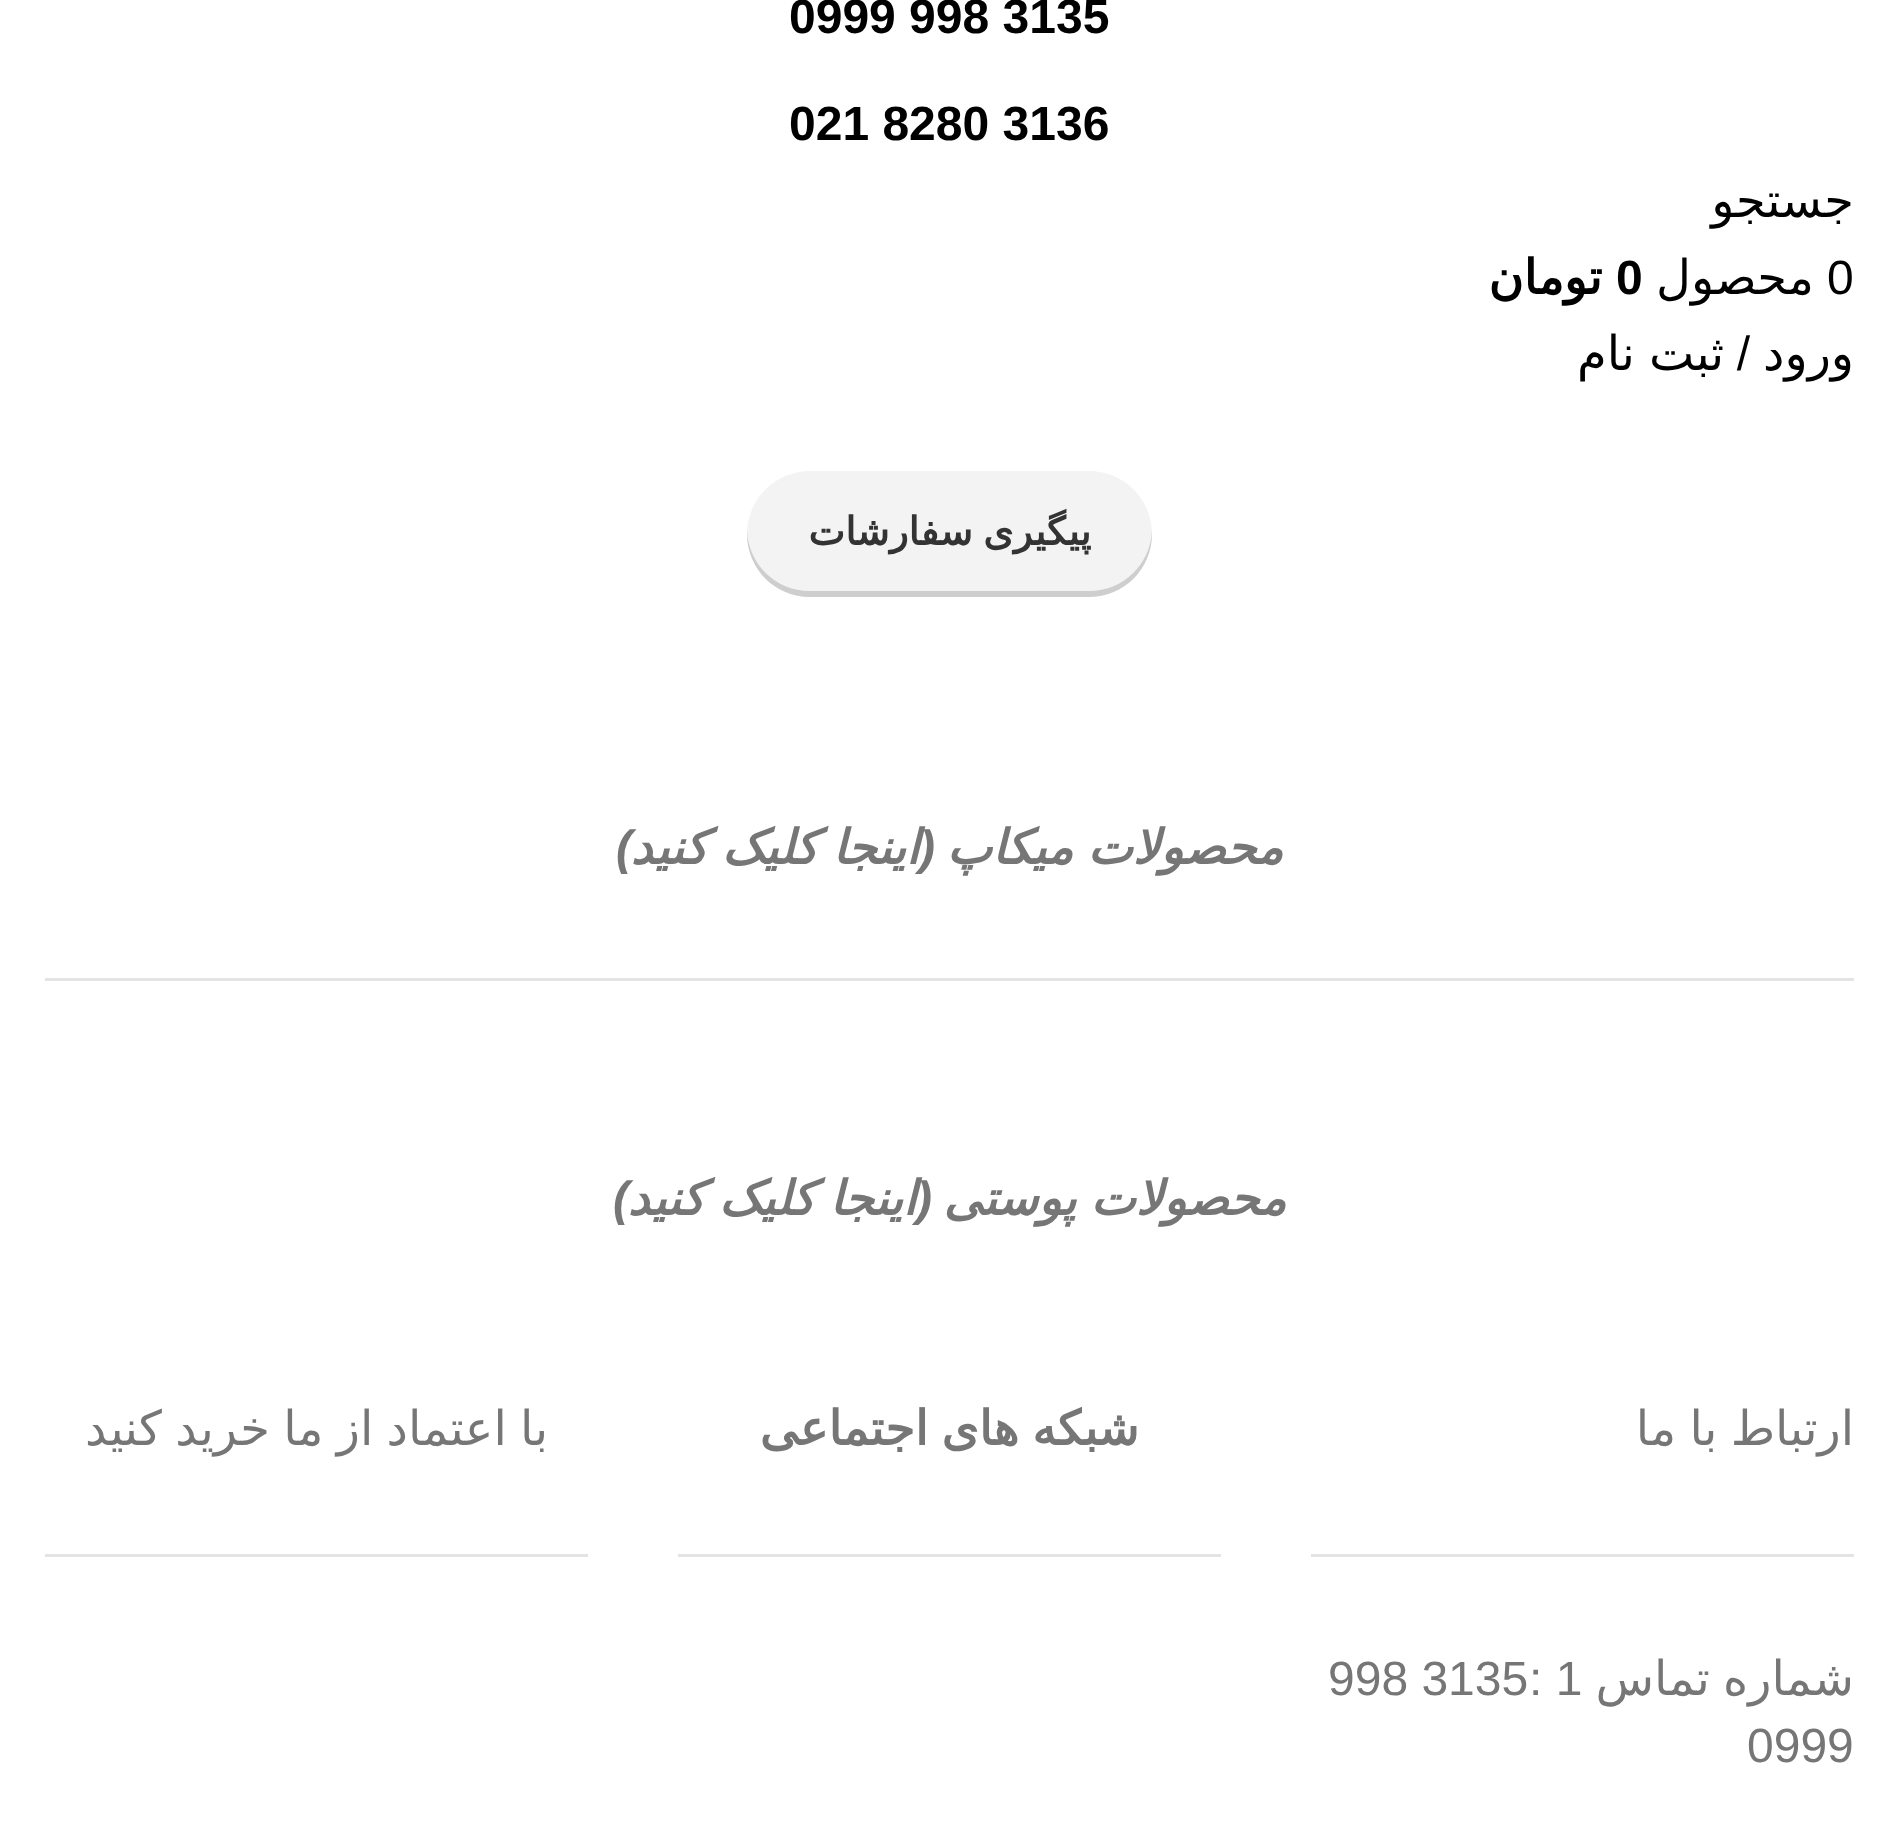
<!DOCTYPE html>
<meta charset="utf-8">
<style>body { margin: 0 } canvas { display: block }</style>
<canvas id="canvas" width="1899" height="1840"></canvas>
<script>
window.onload = function () {
	const canvas = document.getElementById("canvas");
	const ctx = canvas.getContext("2d");
	ctx.miterLimit = 4;
	ctx.fontKerning = "normal";
	function txt(s, x, y) {
		ctx.fillText(s, x, y);
	}
	function fill(x, y, w, h) {
		ctx.fillRect(x, y, w, h);
	}
	function round(x, y, w, h, r) {
		ctx.beginPath();
		ctx.roundRect(x, y, w, h, r);
		ctx.fill();
	}

	ctx.fillStyle = "#FFFFFF";
	fill(0, 0, 1899, 1840);
	ctx.fillStyle = "#F3F3F3";
	round(747, 471, 405, 126, 63);
	ctx.fillStyle = "rgba(0, 0, 0, 0.15)";
	ctx.beginPath();
	ctx.moveTo(747, 531);
	ctx.lineTo(747, 534);
	ctx.bezierCurveTo(747, 569, 775, 597, 810, 597);
	ctx.lineTo(1089, 597);
	ctx.bezierCurveTo(1124, 597, 1152, 569, 1152, 534);
	ctx.lineTo(1152, 531);
	ctx.bezierCurveTo(1150, 565, 1123, 591, 1089, 591);
	ctx.lineTo(810, 591);
	ctx.bezierCurveTo(776, 591, 749, 565, 747, 531);
	ctx.closePath();
	ctx.fill();
	ctx.fillStyle = "#E4E4E4";
	fill(45, 978, 1809, 3);
	fill(1311, 1554, 543, 3);
	fill(678, 1554, 543, 3);
	fill(45, 1554, 543, 3);
	ctx.font = "bold 48px Liberation Sans";
	ctx.fillStyle = "#000000";
	txt("0999 998 3135", 789, 33);
	txt("021 8280 3136", 789, 140);
	ctx.direction = "rtl";
	ctx.font = "48px DejaVu Sans";
	txt("جستجو", 1854, 217);
	ctx.direction = "ltr";
	ctx.font = "48px Liberation Sans";
	txt("0", 1827, 294);
	ctx.direction = "rtl";
	ctx.font = "48px DejaVu Sans";
	txt("محصول", 1814, 294);
	ctx.direction = "ltr";
	ctx.font = "bold 48px Liberation Sans";
	txt("0", 1616, 294);
	ctx.direction = "rtl";
	ctx.font = "bold 48px DejaVu Sans";
	txt("تومان", 1602, 294);
	ctx.font = "48px DejaVu Sans";
	txt("ورود", 1854, 370);
	ctx.font = "48px Liberation Sans";
	txt("/", 1750, 370);
	ctx.wordSpacing = "-1px";
	ctx.font = "48px DejaVu Sans";
	txt("ثبت نام", 1724, 370);
	ctx.wordSpacing = "-2px";
	ctx.font = "bold 39px DejaVu Sans";
	ctx.fillStyle = "#333333";
	txt("پیگیری سفارشات", 1091, 545);
	ctx.wordSpacing = "-1px";
	ctx.font = "italic bold 48px DejaVu Sans";
	ctx.fillStyle = "#767676";
	txt("محصولات میکاپ", 1283, 864);
	txt("اینجا کلیک کنید", 919, 864);
	ctx.wordSpacing = "0px";
	ctx.font = "italic bold 48px Liberation Sans";
	txt("(", 935, 864);
	txt(")", 632, 864);
	ctx.wordSpacing = "-1px";
	ctx.font = "italic bold 48px DejaVu Sans";
	txt("محصولات پوستی", 1286, 1215);
	txt("اینجا کلیک کنید", 916, 1215);
	ctx.wordSpacing = "0px";
	ctx.font = "italic bold 48px Liberation Sans";
	txt("(", 932, 1215);
	txt(")", 629, 1215);
	ctx.wordSpacing = "-2px";
	ctx.font = "48px DejaVu Sans";
	txt("ارتباط با ما", 1854, 1445);
	txt("شماره تماس", 1854, 1695);
	ctx.wordSpacing = "0px";
	ctx.direction = "ltr";
	ctx.font = "48px Liberation Sans";
	txt(": 1", 1529, 1695);
	txt("998 3135", 1328, 1695);
	txt("0999", 1747, 1762);
	ctx.wordSpacing = "-2px";
	ctx.direction = "rtl";
	ctx.font = "bold 48px DejaVu Sans";
	txt("شبکه های اجتماعی", 1139, 1445);
	ctx.font = "48px DejaVu Sans";
	txt("با اعتماد از ما خرید کنید", 548, 1445);
};
</script>
